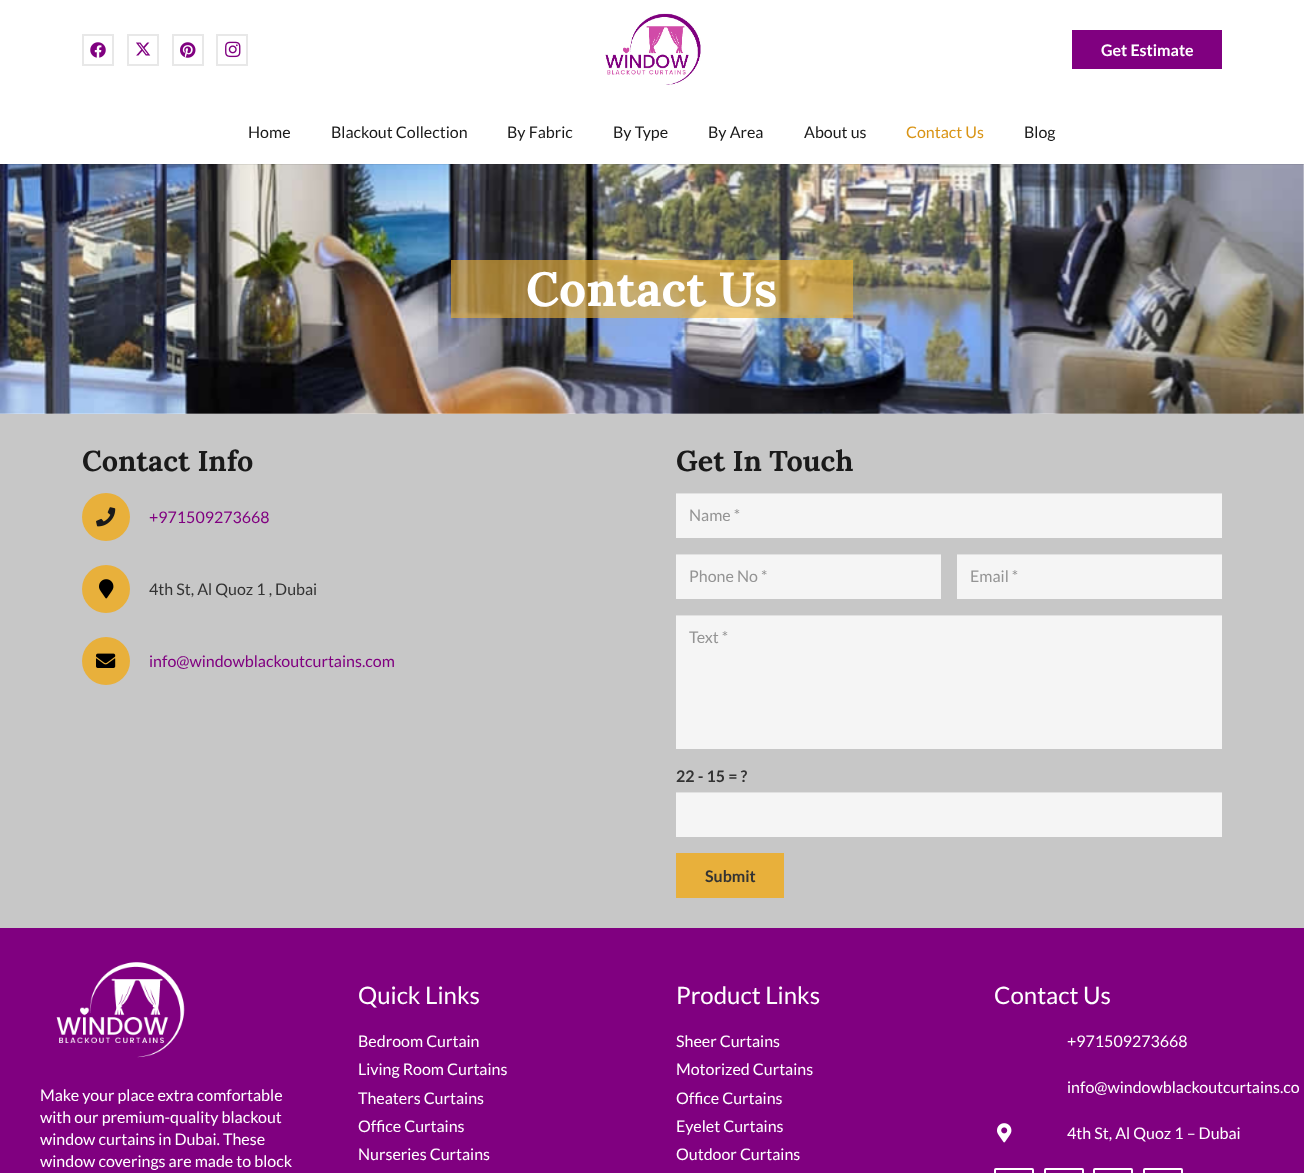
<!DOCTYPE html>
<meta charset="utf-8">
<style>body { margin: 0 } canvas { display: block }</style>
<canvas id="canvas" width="1304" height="1173"></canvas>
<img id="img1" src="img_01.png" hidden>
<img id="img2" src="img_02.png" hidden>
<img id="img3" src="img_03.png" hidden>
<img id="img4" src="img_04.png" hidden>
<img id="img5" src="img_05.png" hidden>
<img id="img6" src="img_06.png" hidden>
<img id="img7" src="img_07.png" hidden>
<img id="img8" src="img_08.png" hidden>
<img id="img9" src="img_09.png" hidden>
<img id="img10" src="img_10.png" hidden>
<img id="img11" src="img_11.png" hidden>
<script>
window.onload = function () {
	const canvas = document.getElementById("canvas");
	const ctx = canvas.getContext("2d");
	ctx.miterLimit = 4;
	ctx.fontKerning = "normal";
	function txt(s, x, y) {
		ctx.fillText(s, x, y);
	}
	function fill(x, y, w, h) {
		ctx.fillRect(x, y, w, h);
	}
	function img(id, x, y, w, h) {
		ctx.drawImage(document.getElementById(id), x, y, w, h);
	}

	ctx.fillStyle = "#FFFFFF";
	fill(0, 0, 1304, 1173);
	ctx.strokeStyle = "#E8E8E8";
	ctx.lineWidth = 2;
	ctx.strokeRect(83, 35, 30, 30);
	img("img1", 90, 42, 16, 16);
	ctx.strokeRect(128, 35, 30, 30);
	img("img2", 136, 42, 15, 14);
	ctx.strokeRect(173, 35, 30, 30);
	img("img3", 180, 42, 16, 16);
	ctx.strokeRect(217, 35, 30, 30);
	img("img4", 225, 41, 16, 17);
	img("img5", 605, 13, 96, 72);
	ctx.fillStyle = "#800080";
	fill(1072, 30, 150, 39);
	img("img6", 0, 164, 1304, 250);
	ctx.fillStyle = "rgba(0, 0, 0, 0.08)";
	fill(0, 164, 1304, 1);
	ctx.fillStyle = "rgba(231, 174, 54, 0.63)";
	fill(451, 260, 402, 58);
	ctx.fillStyle = "#C7C7C7";
	fill(0, 414, 1304, 514);
	ctx.fillStyle = "#E8B03B";
	ctx.beginPath();
	ctx.arc(106, 517, 24, 0, Math.PI * 2);
	ctx.fill();
	img("img7", 96, 507, 20, 20);
	ctx.beginPath();
	ctx.arc(106, 589, 24, 0, Math.PI * 2);
	ctx.fill();
	img("img8", 99, 579, 15, 20);
	ctx.beginPath();
	ctx.arc(106, 661, 24, 0, Math.PI * 2);
	ctx.fill();
	img("img9", 96, 653, 20, 15);
	ctx.fillStyle = "#F5F5F5";
	fill(676, 494, 546, 44);
	ctx.fillStyle = "#E1E1E1";
	fill(676, 493, 546, 1);
	ctx.fillStyle = "#F5F5F5";
	fill(676, 555, 265, 44);
	ctx.fillStyle = "#E1E1E1";
	fill(676, 554, 265, 1);
	ctx.fillStyle = "#F5F5F5";
	fill(957, 555, 265, 44);
	ctx.fillStyle = "#E1E1E1";
	fill(957, 554, 265, 1);
	ctx.fillStyle = "#F5F5F5";
	fill(676, 616, 546, 133);
	ctx.fillStyle = "#E1E1E1";
	fill(676, 615, 546, 1);
	ctx.fillStyle = "#F5F5F5";
	fill(676, 793, 546, 44);
	ctx.fillStyle = "#E1E1E1";
	fill(676, 792, 546, 1);
	ctx.fillStyle = "#E8B03B";
	fill(676, 853, 108, 45);
	ctx.fillStyle = "#800080";
	fill(0, 928, 1304, 245);
	img("img10", 56, 962, 129, 96);
	img("img11", 997, 1123, 15, 20);
	ctx.beginPath();
	ctx.roundRect(995, 1169, 38, 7, 1);
	ctx.strokeStyle = "#FFFFFF";
	ctx.stroke();
	ctx.beginPath();
	ctx.roundRect(1045, 1169, 38, 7, 1);
	ctx.stroke();
	ctx.beginPath();
	ctx.roundRect(1094, 1169, 38, 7, 1);
	ctx.stroke();
	ctx.beginPath();
	ctx.roundRect(1144, 1169, 38, 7, 1);
	ctx.stroke();
	ctx.font = "bold 16px Lato";
	ctx.fillStyle = "#FFFFFF";
	txt("Get Estimate", 1101, 56);
	ctx.font = "16px Lato";
	ctx.fillStyle = "#1A1A1A";
	txt("Home", 248, 138);
	txt("Blackout Collection", 331, 138);
	txt("By Fabric", 507, 138);
	txt("By Type", 613, 138);
	txt("By Area", 708, 138);
	txt("About us", 804, 138);
	ctx.fillStyle = "#D99416";
	txt("Contact Us", 906, 138);
	ctx.fillStyle = "#1A1A1A";
	txt("Blog", 1024, 138);
	ctx.font = "bold 48px Lora";
	ctx.fillStyle = "#FFFFFF";
	txt("Contact Us", 526, 306);
	ctx.font = "bold 28.75px Lora";
	ctx.fillStyle = "#1A1A1A";
	txt("Contact Info", 82, 471);
	ctx.font = "16px Lato";
	ctx.fillStyle = "#800080";
	txt("+971509273668", 149, 523);
	ctx.fillStyle = "#333333";
	txt("4th St, Al Quoz 1 , Dubai", 149, 595);
	ctx.fillStyle = "#800080";
	txt("info@windowblackoutcurtains.com", 149, 667);
	ctx.font = "bold 28.75px Lora";
	ctx.fillStyle = "#1A1A1A";
	txt("Get In Touch", 676, 471);
	ctx.font = "16px Lato";
	ctx.fillStyle = "#949494";
	txt("Name *", 689, 521);
	txt("Phone No *", 689, 582);
	txt("Email *", 970, 582);
	txt("Text *", 689, 643);
	ctx.font = "bold 16px Lato";
	ctx.fillStyle = "#333333";
	txt("22 - 15 = ?", 676, 782);
	txt("Submit", 705, 882);
	ctx.font = "16px Lato";
	ctx.fillStyle = "#FFFFFF";
	txt("Make your place extra comfortable", 40, 1101);
	txt("with our premium-quality blackout", 40, 1123);
	txt("window curtains in Dubai. These", 40, 1145);
	txt("window coverings are made to block", 40, 1167);
	ctx.font = "24px Lato";
	txt("Quick Links", 358, 1004);
	ctx.font = "16px Lato";
	txt("Bedroom Curtain", 358, 1047);
	txt("Living Room Curtains", 358, 1075);
	txt("Theaters Curtains", 358, 1104);
	txt("Office Curtains", 358, 1132);
	txt("Nurseries Curtains", 358, 1160);
	ctx.font = "24px Lato";
	txt("Product Links", 676, 1004);
	ctx.font = "16px Lato";
	txt("Sheer Curtains", 676, 1047);
	txt("Motorized Curtains", 676, 1075);
	txt("Office Curtains", 676, 1104);
	txt("Eyelet Curtains", 676, 1132);
	txt("Outdoor Curtains", 676, 1160);
	ctx.font = "24px Lato";
	txt("Contact Us", 994, 1004);
	ctx.font = "16px Lato";
	txt("+971509273668", 1067, 1047);
	txt("info@windowblackoutcurtains.co", 1067, 1093);
	txt("4th St, Al Quoz 1 – Dubai", 1067, 1139);
};
</script>
